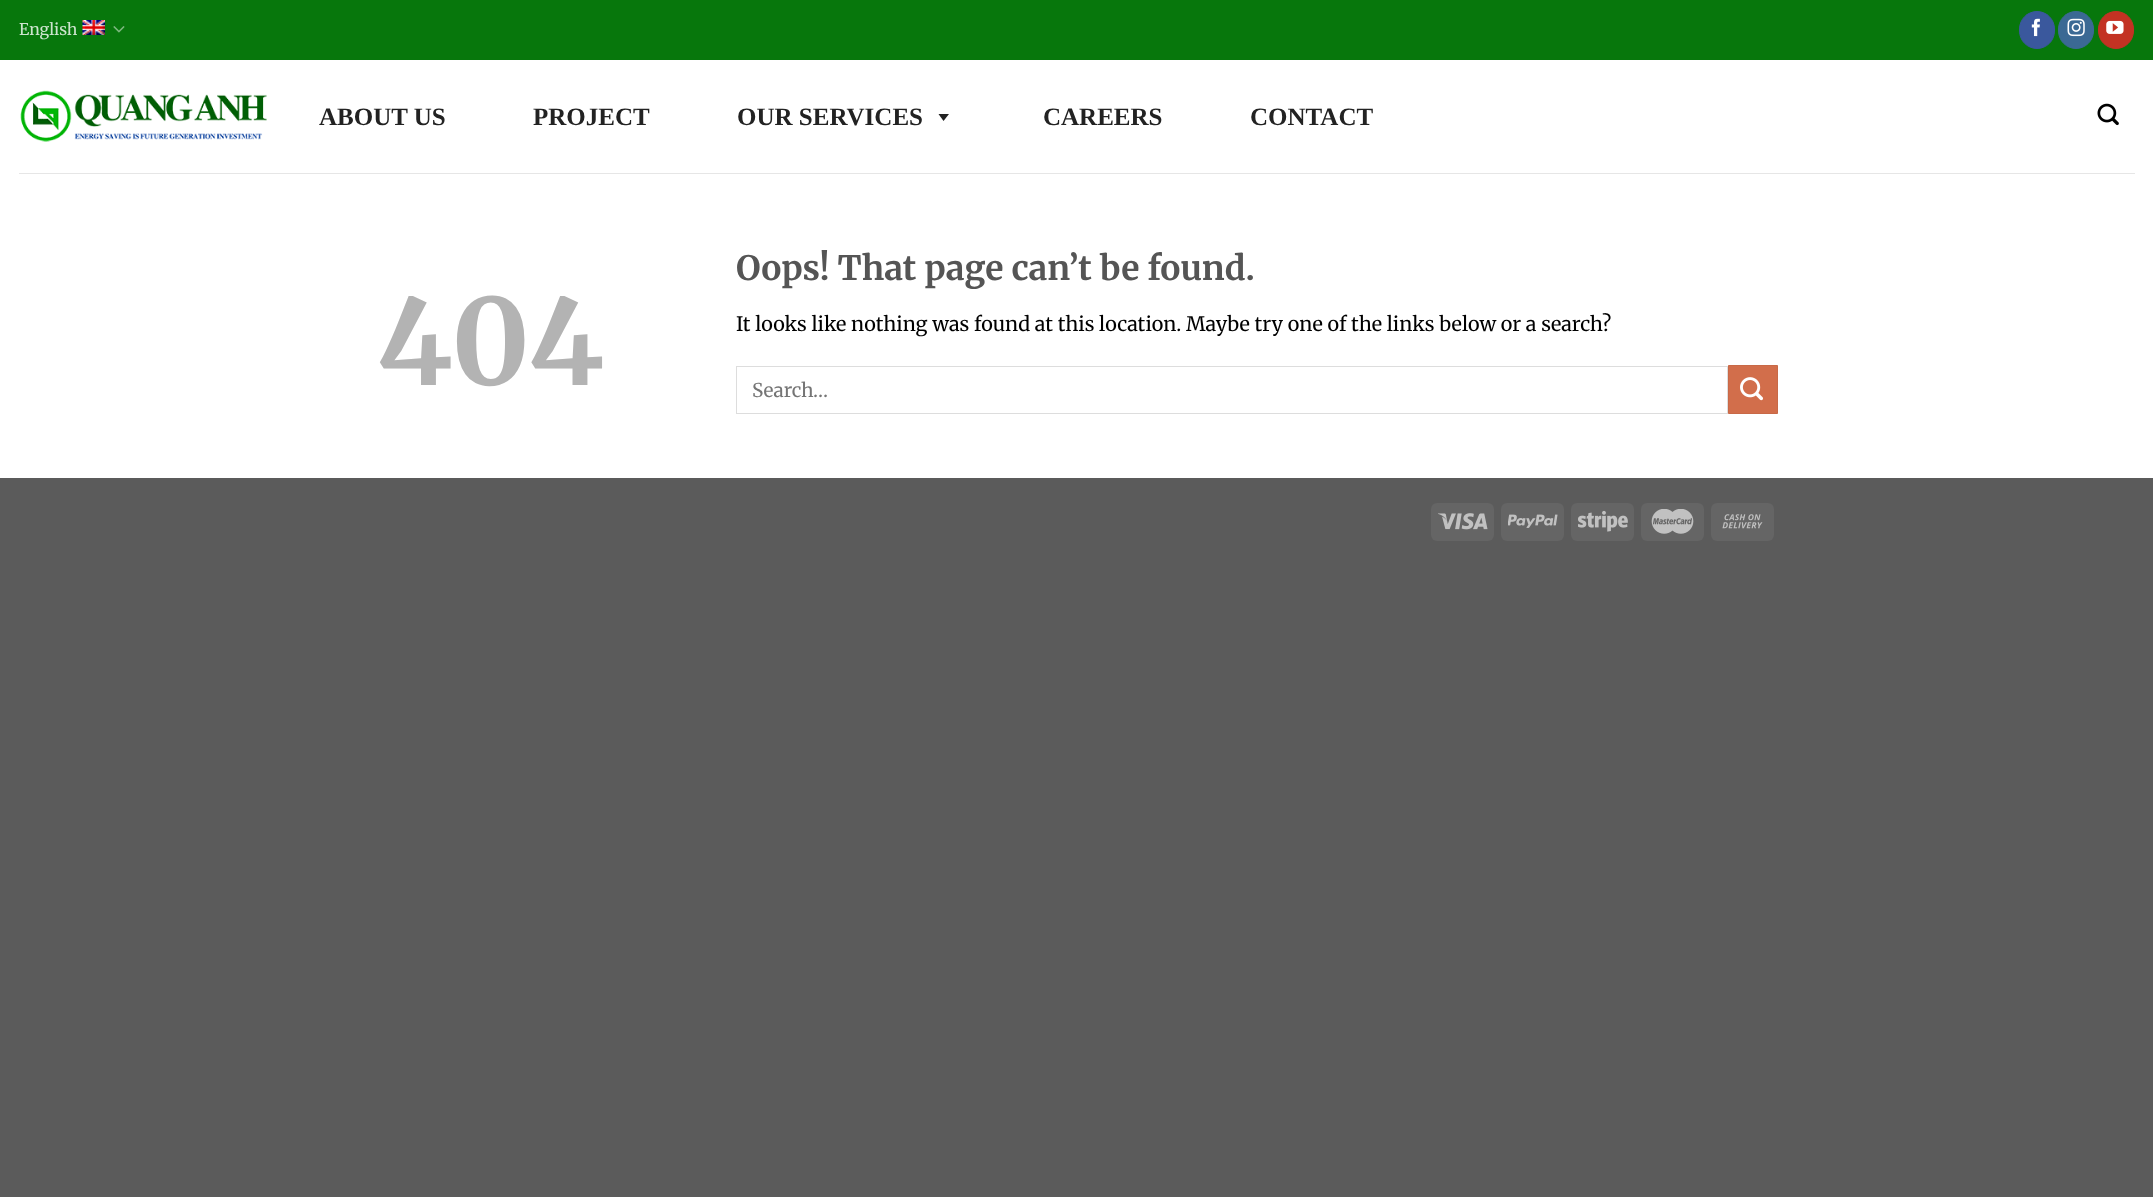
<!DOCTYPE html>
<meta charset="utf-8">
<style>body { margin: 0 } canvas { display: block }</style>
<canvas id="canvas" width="2153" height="1197"></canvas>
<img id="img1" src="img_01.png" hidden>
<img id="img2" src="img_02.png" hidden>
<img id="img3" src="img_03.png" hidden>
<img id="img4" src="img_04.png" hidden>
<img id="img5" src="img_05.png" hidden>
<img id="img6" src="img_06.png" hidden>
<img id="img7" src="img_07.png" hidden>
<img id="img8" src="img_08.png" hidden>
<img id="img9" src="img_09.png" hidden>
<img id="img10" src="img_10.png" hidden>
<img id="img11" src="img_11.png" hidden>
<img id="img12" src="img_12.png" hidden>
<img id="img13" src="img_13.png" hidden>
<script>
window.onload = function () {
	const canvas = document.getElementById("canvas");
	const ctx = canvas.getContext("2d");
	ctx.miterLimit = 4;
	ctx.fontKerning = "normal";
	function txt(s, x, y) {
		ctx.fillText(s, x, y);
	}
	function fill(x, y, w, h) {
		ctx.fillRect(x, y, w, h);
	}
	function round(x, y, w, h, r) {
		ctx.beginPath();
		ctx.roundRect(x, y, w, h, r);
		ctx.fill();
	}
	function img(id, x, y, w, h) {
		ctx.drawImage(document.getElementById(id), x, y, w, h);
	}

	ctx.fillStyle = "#5B5B5B";
	fill(0, 0, 2153, 1197);
	ctx.fillStyle = "#FFFFFF";
	fill(0, 60, 2153, 418);
	ctx.fillStyle = "#07770C";
	fill(0, 0, 2153, 60);
	img("img1", 82, 20, 23, 15);
	img("img2", 113, 26, 12, 7);
	ctx.fillStyle = "#3A589D";
	ctx.beginPath();
	ctx.roundRect(2019.5, 11.5, 35, 37, 17.5);
	ctx.fill();
	ctx.strokeStyle = "#3A589D";
	ctx.stroke();
	img("img3", 2031, 18, 9, 19);
	ctx.fillStyle = "#3B6994";
	ctx.beginPath();
	ctx.roundRect(2058.5, 11.5, 35, 37, 17.5);
	ctx.fill();
	ctx.strokeStyle = "#3B6994";
	ctx.stroke();
	img("img4", 2067, 18, 18, 19);
	ctx.fillStyle = "#C33223";
	ctx.beginPath();
	ctx.roundRect(2098.5, 11.5, 35, 37, 17.5);
	ctx.fill();
	ctx.strokeStyle = "#C33223";
	ctx.stroke();
	img("img5", 2106, 20, 18, 14);
	img("img6", 20, 90, 247, 52);
	ctx.fillStyle = "#222222";
	ctx.beginPath();
	ctx.moveTo(949, 114);
	ctx.lineTo(943.5, 121);
	ctx.lineTo(938.5, 114);
	ctx.closePath();
	ctx.fill();
	img("img7", 2097, 103, 22, 23);
	ctx.fillStyle = "#E6E6E6";
	fill(19, 173, 2116, 1);
	ctx.strokeStyle = "#DDDDDD";
	ctx.strokeRect(736.5, 366.5, 991, 47);
	ctx.fillStyle = "#D26E4B";
	ctx.beginPath();
	ctx.rect(1728.5, 365.5, 49, 48);
	ctx.fill();
	ctx.strokeStyle = "#C86947";
	ctx.stroke();
	img("img8", 1740, 377, 23, 24);
	ctx.fillStyle = "#656565";
	round(1431, 503, 63, 38, 6);
	img("img9", 1438, 513, 50, 17);
	round(1501, 503, 63, 38, 6);
	img("img10", 1508, 514, 50, 14);
	round(1571, 503, 63, 38, 6);
	img("img11", 1578, 510, 50, 22);
	round(1641, 503, 63, 38, 6);
	img("img12", 1651, 509, 43, 25);
	round(1711, 503, 63, 38, 6);
	img("img13", 1722, 514, 41, 15);
	ctx.font = "16px Merriweather";
	ctx.fillStyle = "#CDE4CE";
	txt("English", 19, 35);
	ctx.font = "bold 25px Liberation Serif";
	ctx.fillStyle = "#222222";
	txt("ABOUT US", 319, 125);
	txt("PROJECT", 533, 125);
	txt("OUR SERVICES", 737, 125);
	txt("CAREERS", 1043, 125);
	txt("CONTACT", 1250, 125);
	ctx.font = "bold 119px Merriweather";
	ctx.fillStyle = "#B3B3B3";
	txt("404", 377, 385);
	ctx.font = "bold 33.7px Merriweather";
	ctx.fillStyle = "#555555";
	txt("Oops! That page can’t be found.", 736, 280);
	ctx.font = "19.8px Merriweather";
	ctx.fillStyle = "#000000";
	txt("It looks like nothing was found at this location. Maybe try one of the links below or a search?", 736, 331);
	ctx.font = "19px Merriweather";
	ctx.fillStyle = "#757575";
	txt("Search…", 752, 397);
};
</script>
